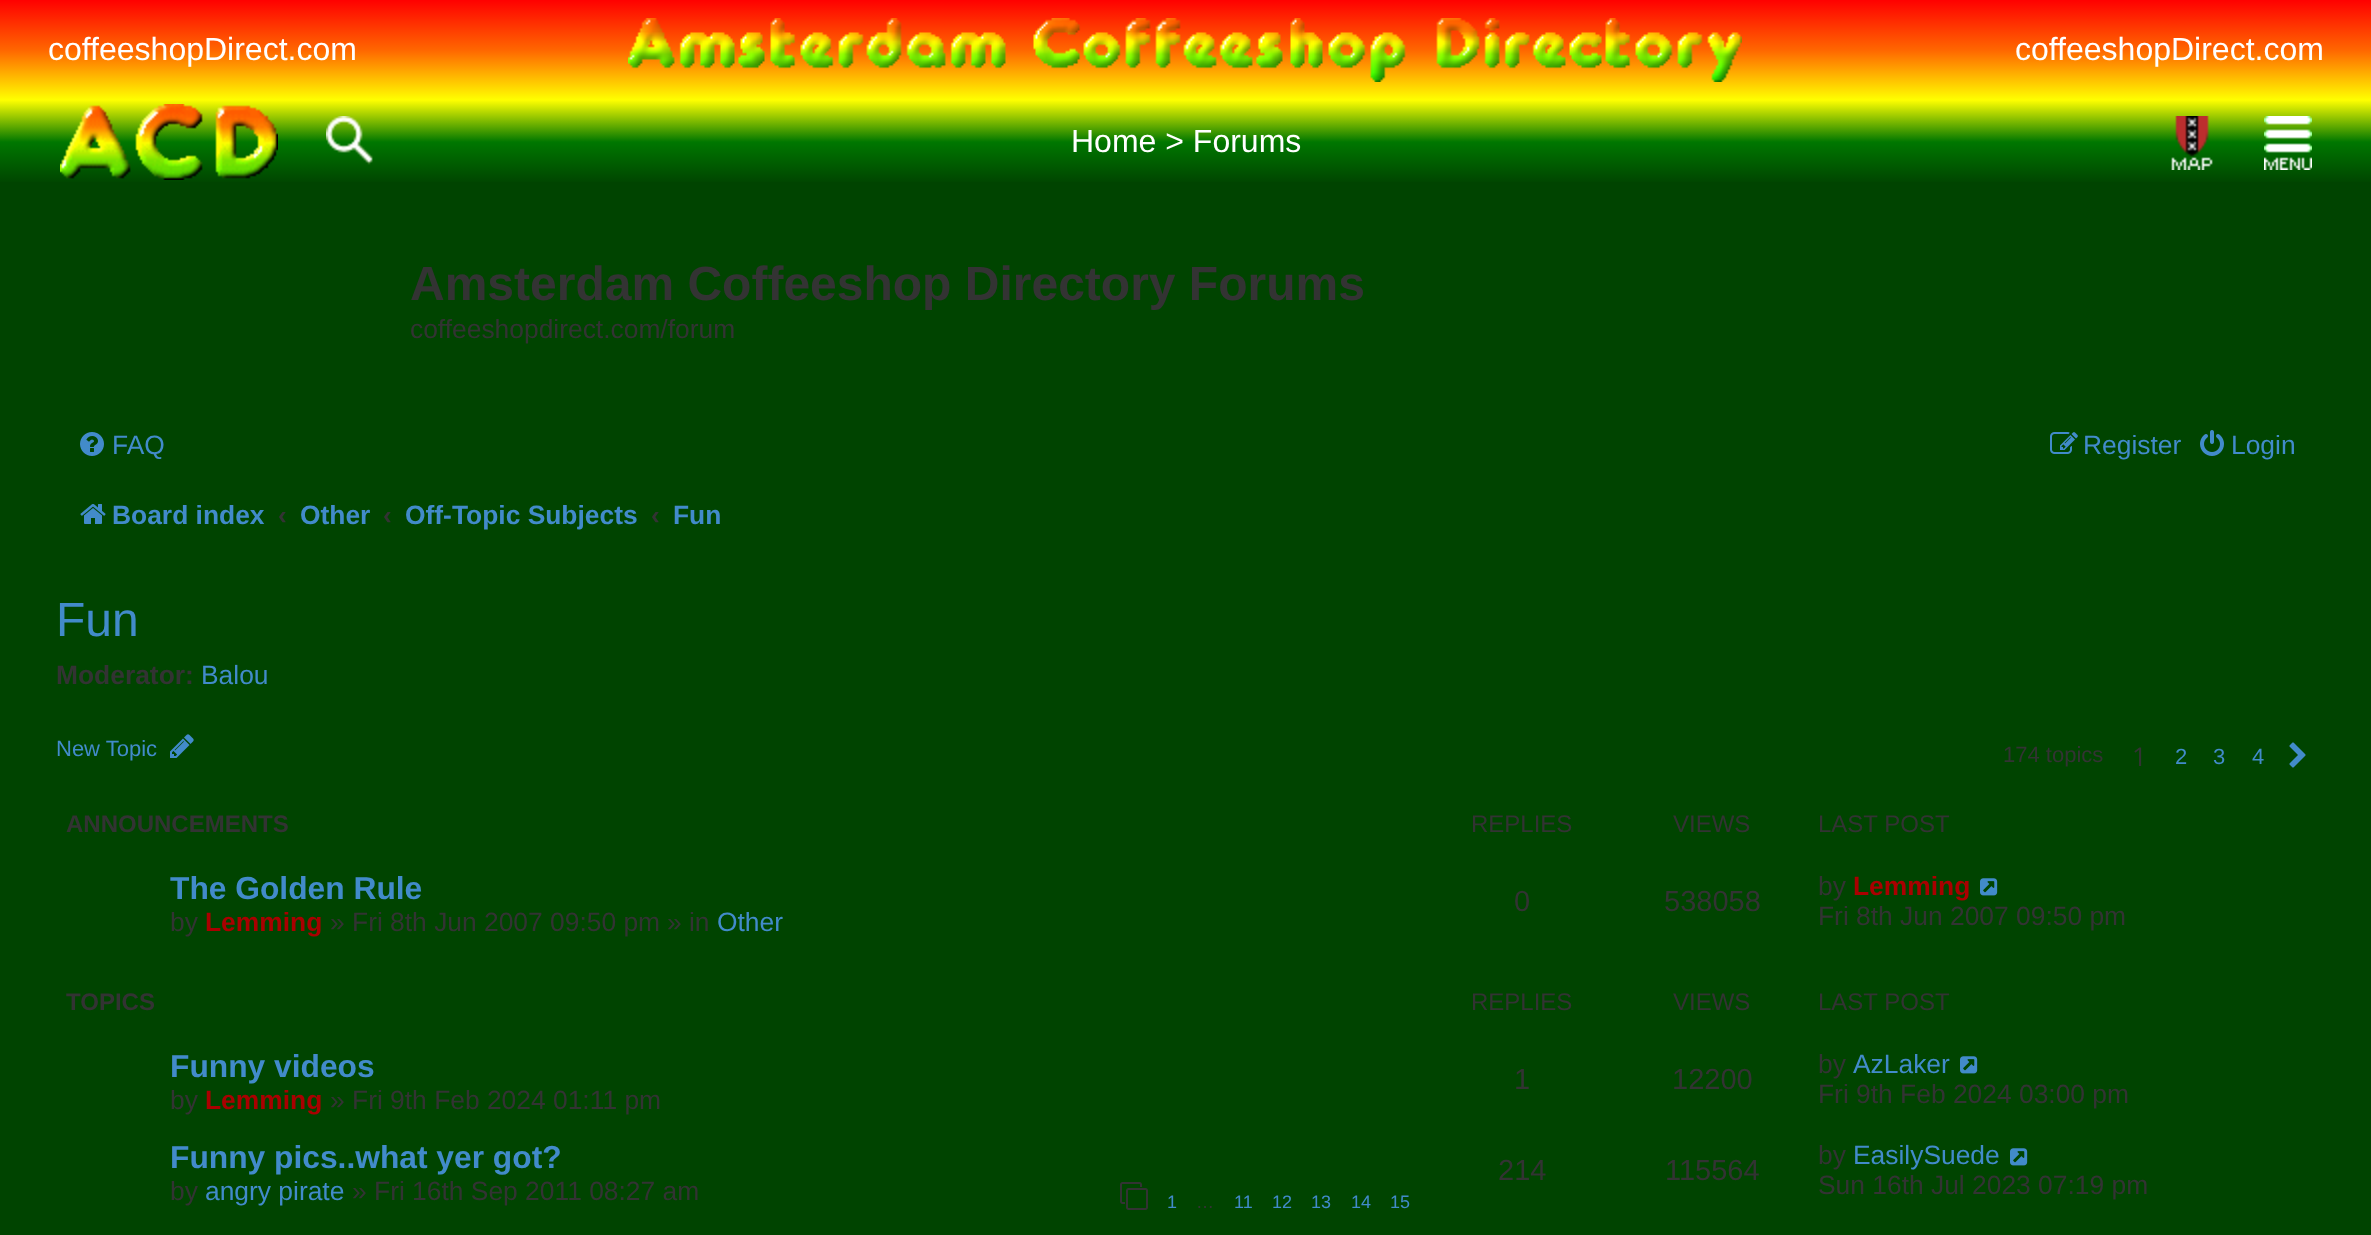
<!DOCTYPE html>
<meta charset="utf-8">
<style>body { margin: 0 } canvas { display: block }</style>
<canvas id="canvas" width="2371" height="1235"></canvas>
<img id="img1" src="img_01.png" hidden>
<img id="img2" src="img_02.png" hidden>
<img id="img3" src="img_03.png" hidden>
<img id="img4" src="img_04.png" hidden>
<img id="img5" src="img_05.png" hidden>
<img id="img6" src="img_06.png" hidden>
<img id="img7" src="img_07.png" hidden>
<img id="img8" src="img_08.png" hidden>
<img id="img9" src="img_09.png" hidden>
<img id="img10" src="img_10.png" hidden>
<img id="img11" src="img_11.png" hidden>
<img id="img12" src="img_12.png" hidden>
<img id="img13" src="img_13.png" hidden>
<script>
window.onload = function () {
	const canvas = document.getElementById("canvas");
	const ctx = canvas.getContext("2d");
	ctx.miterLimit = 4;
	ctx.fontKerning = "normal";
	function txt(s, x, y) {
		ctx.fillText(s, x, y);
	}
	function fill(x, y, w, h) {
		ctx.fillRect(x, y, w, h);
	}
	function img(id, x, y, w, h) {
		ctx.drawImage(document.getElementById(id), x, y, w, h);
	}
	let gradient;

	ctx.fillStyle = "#004400";
	fill(0, 0, 2371, 1235);
	gradient = ctx.createLinearGradient(1186, 0, 1186, 100);
	gradient.addColorStop(0, "#FF0000");
	gradient.addColorStop(0.5, "#FF6600");
	gradient.addColorStop(1, "#FFFF00");
	ctx.fillStyle = gradient;
	fill(0, 0, 2371, 100);
	img("img1", 628, 18, 1114, 64);
	gradient = ctx.createLinearGradient(1186, 100, 1186, 184);
	gradient.addColorStop(0, "#FFFF00");
	gradient.addColorStop(0.5, "#007700");
	gradient.addColorStop(1, "#004400");
	ctx.fillStyle = gradient;
	fill(0, 100, 2371, 82);
	img("img2", 60, 104, 218, 76);
	img("img3", 326, 116, 47, 49);
	img("img4", 2171, 116, 42, 54);
	img("img5", 2264, 116, 48, 54);
	img("img6", 80, 432, 24, 24);
	img("img7", 2050, 432, 28, 22);
	img("img8", 2200, 430, 24, 26);
	img("img9", 80, 504, 26, 20);
	img("img10", 170, 734, 24, 24);
	img("img11", 2289, 742, 17, 26);
	img("img12", 1980, 878, 18, 18);
	img("img12", 1960, 1056, 18, 18);
	img("img13", 1120, 1182, 28, 28);
	img("img12", 2010, 1148, 18, 18);
	ctx.font = "32px Liberation Sans";
	ctx.fillStyle = "#FFFFFF";
	txt("coffeeshopDirect.com", 48, 60);
	txt("coffeeshopDirect.com", 2015, 60);
	txt("Home > Forums", 1071, 152);
	ctx.font = "bold 48px Liberation Sans";
	ctx.fillStyle = "#333333";
	txt("Amsterdam Coffeeshop Directory Forums", 410, 300);
	ctx.font = "26.4px Liberation Sans";
	txt("coffeeshopdirect.com/forum", 410, 338);
	ctx.fillStyle = "#428BCA";
	txt("FAQ", 112, 454);
	txt("Register", 2083, 454);
	txt("Login", 2231, 454);
	ctx.font = "bold 26.4px Liberation Sans";
	txt("Board index", 112, 524);
	ctx.fillStyle = "#333333";
	txt("‹", 278, 524);
	ctx.fillStyle = "#428BCA";
	txt("Other", 300, 524);
	ctx.fillStyle = "#333333";
	txt("‹", 383, 524);
	ctx.fillStyle = "#428BCA";
	txt("Off-Topic Subjects", 405, 524);
	ctx.fillStyle = "#333333";
	txt("‹", 651, 524);
	ctx.fillStyle = "#428BCA";
	txt("Fun", 673, 524);
	ctx.font = "48px Liberation Sans";
	txt("Fun", 56, 636);
	ctx.font = "bold 26.4px Liberation Sans";
	ctx.fillStyle = "#333333";
	txt("Moderator:", 56, 684);
	ctx.font = "26.4px Liberation Sans";
	ctx.fillStyle = "#428BCA";
	txt("Balou", 201, 684);
	ctx.font = "22px Liberation Sans";
	txt("New Topic", 56, 756);
	ctx.fillStyle = "#333333";
	txt("174 topics", 2003, 762);
	ctx.font = "26px Open Sans";
	txt("1", 2132, 766);
	ctx.font = "22px Liberation Sans";
	ctx.fillStyle = "#428BCA";
	txt("2", 2175, 764);
	txt("3", 2213, 764);
	txt("4", 2252, 764);
	ctx.font = "bold 24px Liberation Sans";
	ctx.fillStyle = "#333333";
	txt("ANNOUNCEMENTS", 66, 832);
	ctx.font = "24px Liberation Sans";
	txt("REPLIES", 1471, 832);
	txt("VIEWS", 1673, 832);
	txt("LAST POST", 1818, 832);
	ctx.font = "bold 31.75px Liberation Sans";
	ctx.fillStyle = "#428BCA";
	txt("The Golden Rule", 170, 899);
	ctx.font = "26.4px Liberation Sans";
	ctx.fillStyle = "#333333";
	txt("by", 170, 931);
	ctx.font = "bold 26.4px Liberation Sans";
	ctx.fillStyle = "#AA0000";
	txt("Lemming", 205, 931);
	ctx.font = "26.4px Liberation Sans";
	ctx.fillStyle = "#333333";
	txt("» Fri 8th Jun 2007 09:50 pm", 330, 931);
	txt("» in", 667, 931);
	ctx.fillStyle = "#428BCA";
	txt("Other", 717, 931);
	ctx.font = "29px Liberation Sans";
	ctx.fillStyle = "#333333";
	txt("0", 1514, 911);
	txt("538058", 1664, 911);
	ctx.font = "26.4px Liberation Sans";
	txt("by", 1818, 895);
	ctx.font = "bold 26.4px Liberation Sans";
	ctx.fillStyle = "#AA0000";
	txt("Lemming", 1853, 895);
	ctx.font = "26.4px Liberation Sans";
	ctx.fillStyle = "#333333";
	txt("Fri 8th Jun 2007 09:50 pm", 1818, 925);
	ctx.font = "bold 24px Liberation Sans";
	txt("TOPICS", 66, 1010);
	ctx.font = "24px Liberation Sans";
	txt("REPLIES", 1471, 1010);
	txt("VIEWS", 1673, 1010);
	txt("LAST POST", 1818, 1010);
	ctx.font = "bold 31.75px Liberation Sans";
	ctx.fillStyle = "#428BCA";
	txt("Funny videos", 170, 1077);
	ctx.font = "26.4px Liberation Sans";
	ctx.fillStyle = "#333333";
	txt("by", 170, 1109);
	ctx.font = "bold 26.4px Liberation Sans";
	ctx.fillStyle = "#AA0000";
	txt("Lemming", 205, 1109);
	ctx.font = "26.4px Liberation Sans";
	ctx.fillStyle = "#333333";
	txt("» Fri 9th Feb 2024 01:11 pm", 330, 1109);
	ctx.font = "29px Liberation Sans";
	txt("1", 1514, 1089);
	txt("12200", 1672, 1089);
	ctx.font = "26.4px Liberation Sans";
	txt("by", 1818, 1073);
	ctx.fillStyle = "#428BCA";
	txt("AzLaker", 1853, 1073);
	ctx.fillStyle = "#333333";
	txt("Fri 9th Feb 2024 03:00 pm", 1818, 1103);
	ctx.font = "bold 31.75px Liberation Sans";
	ctx.fillStyle = "#428BCA";
	txt("Funny pics..what yer got?", 170, 1168);
	ctx.font = "26.4px Liberation Sans";
	ctx.fillStyle = "#333333";
	txt("by", 170, 1200);
	ctx.fillStyle = "#428BCA";
	txt("angry pirate", 205, 1200);
	ctx.fillStyle = "#333333";
	txt("» Fri 16th Sep 2011 08:27 am", 352, 1200);
	ctx.font = "18px Liberation Sans";
	ctx.fillStyle = "#428BCA";
	txt("1", 1167, 1208);
	ctx.fillStyle = "#333333";
	txt("…", 1196, 1208);
	ctx.fillStyle = "#428BCA";
	txt("11", 1234, 1208);
	txt("12", 1272, 1208);
	txt("13", 1311, 1208);
	txt("14", 1351, 1208);
	txt("15", 1390, 1208);
	ctx.font = "29px Liberation Sans";
	ctx.fillStyle = "#333333";
	txt("214", 1498, 1180);
	txt("115564", 1665, 1180);
	ctx.font = "26.4px Liberation Sans";
	txt("by", 1818, 1164);
	ctx.fillStyle = "#428BCA";
	txt("EasilySuede", 1853, 1164);
	ctx.fillStyle = "#333333";
	txt("Sun 16th Jul 2023 07:19 pm", 1818, 1194);
};
</script>
